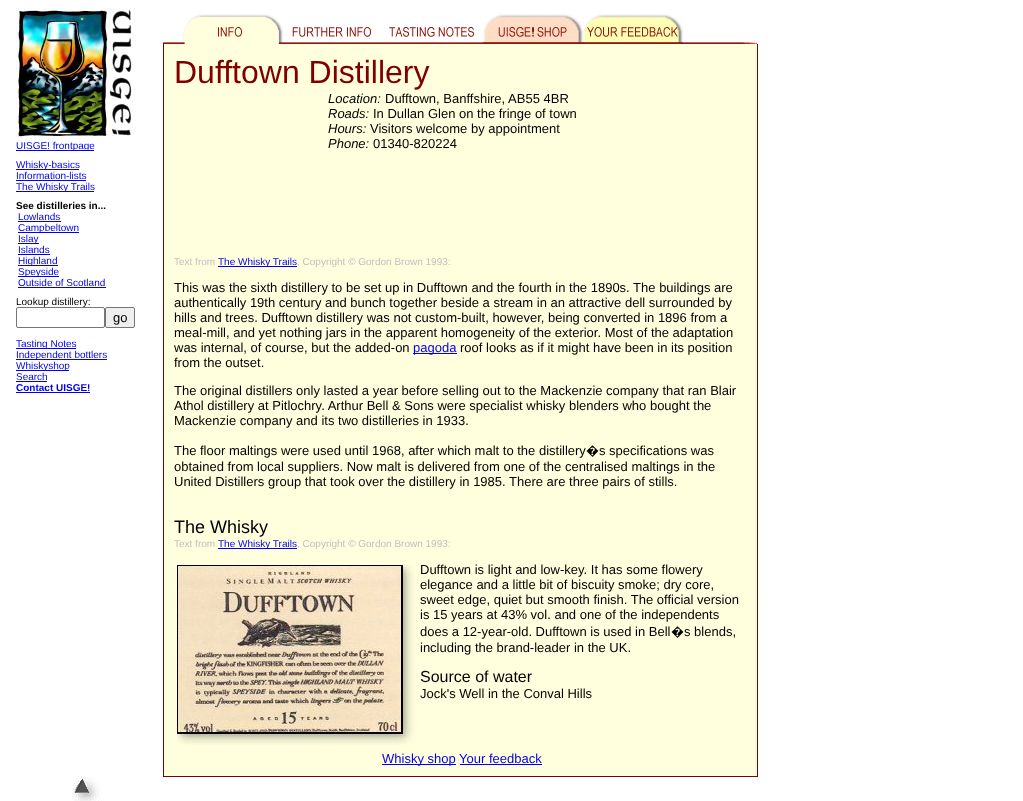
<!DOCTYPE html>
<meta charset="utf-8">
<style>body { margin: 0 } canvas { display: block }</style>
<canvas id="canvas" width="1023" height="801"></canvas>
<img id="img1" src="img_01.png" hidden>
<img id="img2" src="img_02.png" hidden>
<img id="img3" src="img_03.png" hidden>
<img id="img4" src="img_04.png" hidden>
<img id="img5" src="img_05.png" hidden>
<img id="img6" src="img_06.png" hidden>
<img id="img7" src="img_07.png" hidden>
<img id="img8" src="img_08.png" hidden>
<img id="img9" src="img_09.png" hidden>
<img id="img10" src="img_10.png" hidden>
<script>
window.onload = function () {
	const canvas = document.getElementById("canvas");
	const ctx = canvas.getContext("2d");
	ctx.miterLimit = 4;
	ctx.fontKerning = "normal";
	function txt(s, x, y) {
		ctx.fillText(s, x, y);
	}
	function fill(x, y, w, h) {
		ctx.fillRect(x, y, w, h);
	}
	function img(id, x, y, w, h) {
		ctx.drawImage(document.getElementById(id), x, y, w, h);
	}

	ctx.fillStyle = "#FFFFFF";
	fill(0, 0, 1023, 801);
	img("img1", 16, 8, 120, 130);
	ctx.fillStyle = "#0000EE";
	fill(16, 150, 78, 1);
	fill(16, 169, 63, 1);
	fill(16, 180, 70, 1);
	fill(16, 191, 78, 1);
	fill(18, 221, 43, 1);
	fill(18, 232, 61, 1);
	fill(18, 243, 21, 1);
	fill(18, 254, 32, 1);
	fill(18, 265, 40, 1);
	fill(18, 276, 41, 1);
	fill(18, 287, 88, 1);
	ctx.fillStyle = "#EFEFEF";
	ctx.beginPath();
	ctx.roundRect(105.5, 307.5, 29, 20, 1.5);
	ctx.fill();
	ctx.strokeStyle = "#767676";
	ctx.stroke();
	ctx.fillStyle = "#0000EE";
	fill(16, 348, 60, 1);
	fill(16, 359, 91, 1);
	fill(16, 370, 53, 1);
	fill(16, 381, 31, 1);
	fill(16, 392, 74, 1);
	ctx.fillStyle = "#FFFFDE";
	fill(164, 44, 593, 732);
	img("img2", 163, 42, 20, 2);
	img("img3", 183, 14, 100, 30);
	img("img4", 283, 27, 100, 17);
	img("img5", 383, 27, 100, 17);
	img("img6", 483, 14, 100, 30);
	img("img7", 583, 14, 100, 30);
	img("img8", 683, 42, 74, 2);
	ctx.fillStyle = "#800000";
	fill(163, 44, 1, 732);
	ctx.fillStyle = "#0000EE";
	fill(218, 266, 79, 1);
	fill(413, 353, 44, 1);
	fill(218, 548, 79, 1);
	img("img9", 177, 565, 240, 180);
	fill(382, 764, 74, 1);
	fill(460, 764, 82, 1);
	ctx.fillStyle = "#800000";
	fill(757, 44, 1, 732);
	fill(163, 776, 595, 1);
	img("img10", 72, 777, 29, 24);
	ctx.font = "10px Liberation Sans";
	ctx.fillStyle = "#0000EE";
	txt("UISGE! frontpage", 16, 149);
	txt("Whisky-basics", 16, 168);
	txt("Information-lists", 16, 179);
	txt("The Whisky Trails", 16, 190);
	ctx.font = "bold 10px Liberation Sans";
	ctx.fillStyle = "#000000";
	txt("See distilleries in...", 16, 209);
	ctx.font = "10px Liberation Sans";
	ctx.fillStyle = "#0000EE";
	txt("Lowlands", 18, 220);
	txt("Campbeltown", 18, 231);
	txt("Islay", 18, 242);
	txt("Islands", 18, 253);
	txt("Highland", 18, 264);
	txt("Speyside", 18, 275);
	txt("Outside of Scotland", 18, 286);
	ctx.fillStyle = "#000000";
	txt("Lookup distillery:", 16, 305);
	ctx.fillStyle = "#FFFFFF";
	ctx.beginPath();
	ctx.roundRect(16.5, 307.5, 88, 20, 1.5);
	ctx.fill();
	ctx.stroke();
	ctx.font = "13px Liberation Sans";
	ctx.fillStyle = "#000000";
	txt("go", 113, 322);
	ctx.font = "10px Liberation Sans";
	ctx.fillStyle = "#0000EE";
	txt("Tasting Notes", 16, 347);
	txt("Independent bottlers", 16, 358);
	txt("Whiskyshop", 16, 369);
	txt("Search", 16, 380);
	ctx.font = "bold 10px Liberation Sans";
	txt("Contact UISGE!", 16, 391);
	ctx.font = "32px Liberation Sans";
	ctx.fillStyle = "#800000";
	txt("Dufftown Distillery", 174, 83);
	ctx.font = "italic 13px Liberation Sans";
	ctx.fillStyle = "#000000";
	txt("Location:", 328, 103);
	ctx.font = "13px Liberation Sans";
	txt("Dufftown, Banffshire, AB55 4BR", 385, 103);
	ctx.font = "italic 13px Liberation Sans";
	txt("Roads:", 328, 118);
	ctx.font = "13px Liberation Sans";
	txt("In Dullan Glen on the fringe of town", 373, 118);
	ctx.font = "italic 13px Liberation Sans";
	txt("Hours:", 328, 133);
	ctx.font = "13px Liberation Sans";
	txt("Visitors welcome by appointment", 370, 133);
	ctx.font = "italic 13px Liberation Sans";
	txt("Phone:", 328, 148);
	ctx.font = "13px Liberation Sans";
	txt("01340-820224", 373, 148);
	ctx.font = "10px Liberation Sans";
	ctx.fillStyle = "#C0C0C0";
	txt("Text from", 174, 265);
	ctx.fillStyle = "#0000EE";
	txt("The Whisky Trails", 218, 265);
	ctx.fillStyle = "#C0C0C0";
	txt(", Copyright © Gordon Brown 1993:", 297, 265);
	ctx.font = "13px Liberation Sans";
	ctx.fillStyle = "#000000";
	txt("This was the sixth distillery to be set up in Dufftown and the fourth in the 1890s. The buildings are", 174, 292);
	txt("authentically 19th century and bunch together beside a stream in an attractive dell surrounded by", 174, 307);
	txt("hills and trees. Dufftown distillery was not custom-built, however, being converted in 1896 from a", 174, 322);
	txt("meal-mill, and yet nothing jars in the apparent homogeneity of the exterior. Most of the adaptation", 174, 337);
	txt("was internal, of course, but the added-on", 174, 352);
	ctx.fillStyle = "#0000EE";
	txt("pagoda", 413, 352);
	ctx.fillStyle = "#000000";
	txt("roof looks as if it might have been in its position", 460, 352);
	txt("from the outset.", 174, 367);
	txt("The original distillers only lasted a year before selling out to the Mackenzie company that ran Blair", 174, 395);
	txt("Athol distillery at Pitlochry. Arthur Bell & Sons were specialist whisky blenders who bought the", 174, 410);
	txt("Mackenzie company and its two distilleries in 1933.", 174, 425);
	txt("The floor maltings were used until 1968, after which malt to the distillery", 174, 455);
	ctx.font = "13px Noto Sans";
	txt("�", 586, 455);
	ctx.font = "13px Liberation Sans";
	txt("s specifications was", 599, 455);
	txt("obtained from local suppliers. Now malt is delivered from one of the centralised maltings in the", 174, 471);
	txt("United Distillers group that took over the distillery in 1985. There are three pairs of stills.", 174, 486);
	ctx.font = "18px Liberation Sans";
	txt("The Whisky", 174, 533);
	ctx.font = "10px Liberation Sans";
	ctx.fillStyle = "#C0C0C0";
	txt("Text from", 174, 547);
	ctx.fillStyle = "#0000EE";
	txt("The Whisky Trails", 218, 547);
	ctx.fillStyle = "#C0C0C0";
	txt(", Copyright © Gordon Brown 1993:", 297, 547);
	ctx.font = "13px Liberation Sans";
	ctx.fillStyle = "#000000";
	txt("Dufftown is light and low-key. It has some flowery", 420, 574);
	txt("elegance and a little bit of biscuity smoke; dry core,", 420, 589);
	txt("sweet edge, quiet but smooth finish. The official version", 420, 604);
	txt("is 15 years at 43% vol. and one of the independents", 420, 619);
	txt("does a 12-year-old. Dufftown is used in Bell", 420, 636);
	ctx.font = "13px Noto Sans";
	txt("�", 671, 636);
	ctx.font = "13px Liberation Sans";
	txt("s blends,", 684, 636);
	txt("including the brand-leader in the UK.", 420, 652);
	ctx.font = "16px Liberation Sans";
	txt("Source of water", 420, 682);
	ctx.font = "13px Liberation Sans";
	txt("Jock's Well in the Conval Hills", 420, 698);
	ctx.fillStyle = "#0000EE";
	txt("Whisky shop Your feedback", 382, 763);
};
</script>
